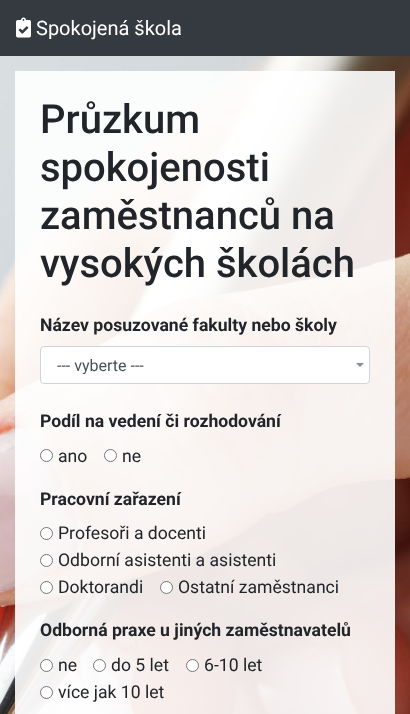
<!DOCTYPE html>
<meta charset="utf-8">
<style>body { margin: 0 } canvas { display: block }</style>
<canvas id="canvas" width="410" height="714"></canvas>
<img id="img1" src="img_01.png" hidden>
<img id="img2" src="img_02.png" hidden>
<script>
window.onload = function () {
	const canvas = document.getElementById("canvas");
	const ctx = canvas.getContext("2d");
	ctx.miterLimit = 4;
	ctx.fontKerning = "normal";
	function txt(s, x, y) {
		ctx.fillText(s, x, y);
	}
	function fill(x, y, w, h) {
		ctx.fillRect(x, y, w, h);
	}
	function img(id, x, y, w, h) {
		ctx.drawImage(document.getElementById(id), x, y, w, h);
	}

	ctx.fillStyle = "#FFFFFF";
	fill(0, 0, 410, 714);
	img("img1", 0, 56, 410, 658);
	ctx.fillStyle = "#343A40";
	fill(0, 0, 410, 56);
	img("img2", 16, 17, 15, 21);
	ctx.fillStyle = "rgba(255, 255, 255, 0.9)";
	fill(15, 71, 380, 643);
	ctx.fillStyle = "#FFFFFF";
	ctx.beginPath();
	ctx.roundRect(40.5, 346.5, 329, 37, 3.5);
	ctx.fill();
	ctx.strokeStyle = "#CED4DA";
	ctx.stroke();
	ctx.fillStyle = "#868E96";
	ctx.beginPath();
	ctx.moveTo(356, 363);
	ctx.lineTo(364, 363);
	ctx.lineTo(360, 367);
	ctx.closePath();
	ctx.fill();
	ctx.fillStyle = "#FFFFFF";
	ctx.beginPath();
	ctx.arc(46.5, 455.5, 6, 0, Math.PI * 2);
	ctx.fill();
	ctx.strokeStyle = "#767676";
	ctx.stroke();
	ctx.beginPath();
	ctx.arc(110.5, 455.5, 6, 0, Math.PI * 2);
	ctx.fill();
	ctx.stroke();
	ctx.beginPath();
	ctx.arc(46.5, 533.5, 6, 0, Math.PI * 2);
	ctx.fill();
	ctx.stroke();
	ctx.beginPath();
	ctx.arc(46.5, 560.5, 6, 0, Math.PI * 2);
	ctx.fill();
	ctx.stroke();
	ctx.beginPath();
	ctx.arc(46.5, 587.5, 6, 0, Math.PI * 2);
	ctx.fill();
	ctx.stroke();
	ctx.beginPath();
	ctx.arc(166.5, 587.5, 6, 0, Math.PI * 2);
	ctx.fill();
	ctx.stroke();
	ctx.beginPath();
	ctx.arc(46.5, 665.5, 6, 0, Math.PI * 2);
	ctx.fill();
	ctx.stroke();
	ctx.beginPath();
	ctx.arc(99.5, 665.5, 6, 0, Math.PI * 2);
	ctx.fill();
	ctx.stroke();
	ctx.beginPath();
	ctx.arc(192.5, 665.5, 6, 0, Math.PI * 2);
	ctx.fill();
	ctx.stroke();
	ctx.beginPath();
	ctx.arc(46.5, 692.5, 6, 0, Math.PI * 2);
	ctx.fill();
	ctx.stroke();
	ctx.font = "20px Roboto";
	txt("Spokojená škola", 36, 35);
	ctx.font = "500 40px Roboto";
	ctx.fillStyle = "#212529";
	txt("Průzkum", 40, 133);
	txt("spokojenosti", 40, 181);
	txt("zaměstnanců na", 40, 229);
	txt("vysokých školách", 40, 277);
	ctx.font = "bold 17.6px Roboto";
	txt("Název posuzované fakulty nebo školy", 40, 331);
	ctx.save();
	ctx.beginPath();
	ctx.rect(47, 358, 304, 16);
	ctx.clip();
	ctx.font = "16px Roboto";
	ctx.fillStyle = "#495057";
	txt("--- vyberte ---", 57, 371);
	ctx.restore();
	txt("Podíl na vedení či rozhodování", 40, 427);
	ctx.font = "17.6px Roboto";
	txt("ano", 58, 462);
	txt("ne", 122, 462);
	ctx.font = "bold 17.6px Roboto";
	txt("Pracovní zařazení", 40, 505);
	ctx.font = "17.6px Roboto";
	txt("Profesoři a docenti", 58, 539);
	txt("Odborní asistenti a asistenti", 58, 566);
	txt("Doktorandi", 58, 593);
	txt("Ostatní zaměstnanci", 178, 593);
	ctx.font = "bold 17.6px Roboto";
	txt("Odborná praxe u jiných zaměstnavatelů", 40, 636);
	ctx.font = "17.6px Roboto";
	txt("ne", 58, 671);
	txt("do 5 let", 111, 671);
	txt("6-10 let", 204, 671);
	txt("více jak 10 let", 58, 698);
};
</script>
